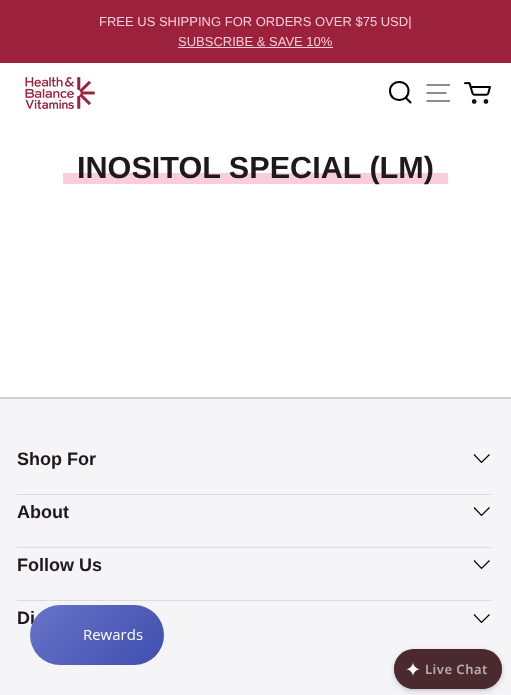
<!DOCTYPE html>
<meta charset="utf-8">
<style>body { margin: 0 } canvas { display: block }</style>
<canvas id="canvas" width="511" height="695"></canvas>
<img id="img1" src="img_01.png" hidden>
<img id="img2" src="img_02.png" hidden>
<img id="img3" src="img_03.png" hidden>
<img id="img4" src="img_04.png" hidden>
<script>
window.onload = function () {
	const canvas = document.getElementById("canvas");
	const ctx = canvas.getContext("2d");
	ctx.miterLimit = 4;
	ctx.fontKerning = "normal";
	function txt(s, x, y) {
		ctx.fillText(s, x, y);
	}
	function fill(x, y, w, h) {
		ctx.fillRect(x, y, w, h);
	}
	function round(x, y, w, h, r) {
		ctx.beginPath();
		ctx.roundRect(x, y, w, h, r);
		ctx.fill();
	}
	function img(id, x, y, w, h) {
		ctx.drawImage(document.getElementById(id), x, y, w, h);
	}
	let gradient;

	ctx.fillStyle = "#FFFFFF";
	fill(0, 0, 511, 695);
	ctx.fillStyle = "#9C213D";
	fill(0, 0, 511, 63);
	ctx.fillStyle = "#FACDDA";
	fill(178, 47, 155, 1);
	ctx.fillStyle = "rgba(0, 0, 0, 0.2)";
	ctx.filter = "blur(0.5px)";
	ctx.beginPath();
	ctx.rect(0, 63, 511, 59);
	ctx.fill();
	ctx.filter = "none";
	ctx.fillStyle = "#FFFFFF";
	fill(0, 63, 511, 59);
	img("img1", 25, 77, 70, 33);
	ctx.beginPath();
	ctx.moveTo(408.5, 91);
	ctx.bezierCurveTo(408.5, 103, 390, 103, 390, 91);
	ctx.bezierCurveTo(390, 79, 408.5, 79, 408.5, 91);
	ctx.closePath();
	ctx.moveTo(410.5, 102.5);
	ctx.lineTo(405.5, 97.5);
	ctx.strokeStyle = "#000000";
	ctx.lineWidth = 2;
	ctx.lineCap = "round";
	ctx.lineJoin = "round";
	ctx.stroke();
	ctx.beginPath();
	ctx.moveTo(426.5, 85);
	ctx.lineTo(450, 85);
	ctx.moveTo(426.5, 93);
	ctx.lineTo(446.5, 93);
	ctx.moveTo(426.5, 101);
	ctx.lineTo(450, 101);
	ctx.lineWidth = 0.9;
	ctx.lineCap = "butt";
	ctx.lineJoin = "miter";
	ctx.stroke();
	img("img2", 464, 82, 27, 22);
	ctx.fillStyle = "#F5F5F7";
	fill(0, 399, 511, 296);
	ctx.fillStyle = "#D0D0D0";
	fill(0, 397, 511, 2);
	ctx.beginPath();
	ctx.moveTo(474, 454.5);
	ctx.lineTo(481.5, 462.5);
	ctx.lineTo(489.5, 454.5);
	ctx.lineWidth = 1.2;
	ctx.stroke();
	ctx.fillStyle = "#DBDBDD";
	fill(17, 494, 474, 1);
	ctx.beginPath();
	ctx.moveTo(474, 507.5);
	ctx.lineTo(481.5, 515.5);
	ctx.lineTo(489.5, 507.5);
	ctx.stroke();
	fill(17, 547, 474, 1);
	ctx.beginPath();
	ctx.moveTo(474, 560.5);
	ctx.lineTo(481.5, 568.5);
	ctx.lineTo(489.5, 560.5);
	ctx.stroke();
	fill(17, 600, 474, 1);
	ctx.beginPath();
	ctx.moveTo(474, 614.5);
	ctx.lineTo(481.5, 622.5);
	ctx.lineTo(489.5, 614.5);
	ctx.stroke();
	ctx.fillStyle = "#FACDDA";
	fill(63, 173, 385, 11);
	ctx.fillStyle = "rgba(0, 0, 0, 0.08)";
	ctx.filter = "blur(1px)";
	ctx.beginPath();
	ctx.roundRect(394, 650, 108, 40, 20);
	ctx.fill();
	ctx.filter = "none";
	ctx.fillStyle = "rgba(74, 29, 90, 0.2)";
	ctx.filter = "blur(3px)";
	ctx.beginPath();
	ctx.roundRect(394, 651, 108, 40, 20);
	ctx.fill();
	ctx.filter = "none";
	ctx.fillStyle = "#4A2B30";
	round(394, 649, 108, 40, 20);
	ctx.font = "13px Liberation Sans";
	ctx.fillStyle = "#FACDDA";
	txt("FREE US SHIPPING FOR ORDERS OVER $75 USD|", 99, 26);
	txt("SUBSCRIBE & SAVE 10%", 178, 46);
	ctx.font = "bold 18px Liberation Sans";
	ctx.fillStyle = "#20191B";
	txt("Shop For", 17, 465);
	txt("About", 17, 518);
	txt("Follow Us", 17, 571);
	txt("Di", 17, 624);
	ctx.font = "bold 30.6px Liberation Sans";
	txt("INOSITOL SPECIAL (LM)", 77, 178);
	ctx.letterSpacing = "0.5px";
	ctx.font = "600 13px Noto Sans";
	ctx.fillStyle = "#FFFFFF";
	txt("Live Chat", 425, 674);
	ctx.fillStyle = "rgba(74, 43, 48, 0.4)";
	round(394, 649, 108, 40, 20);
	img("img3", 406, 662, 14, 14);
	gradient = ctx.createLinearGradient(49, 587, 146, 684);
	gradient.addColorStop(0, "#6774C8");
	gradient.addColorStop(1, "#3F4EAE");
	ctx.fillStyle = gradient;
	round(30, 605, 134, 60, 30);
	img("img4", 84, 629, 59, 11);
};
</script>
